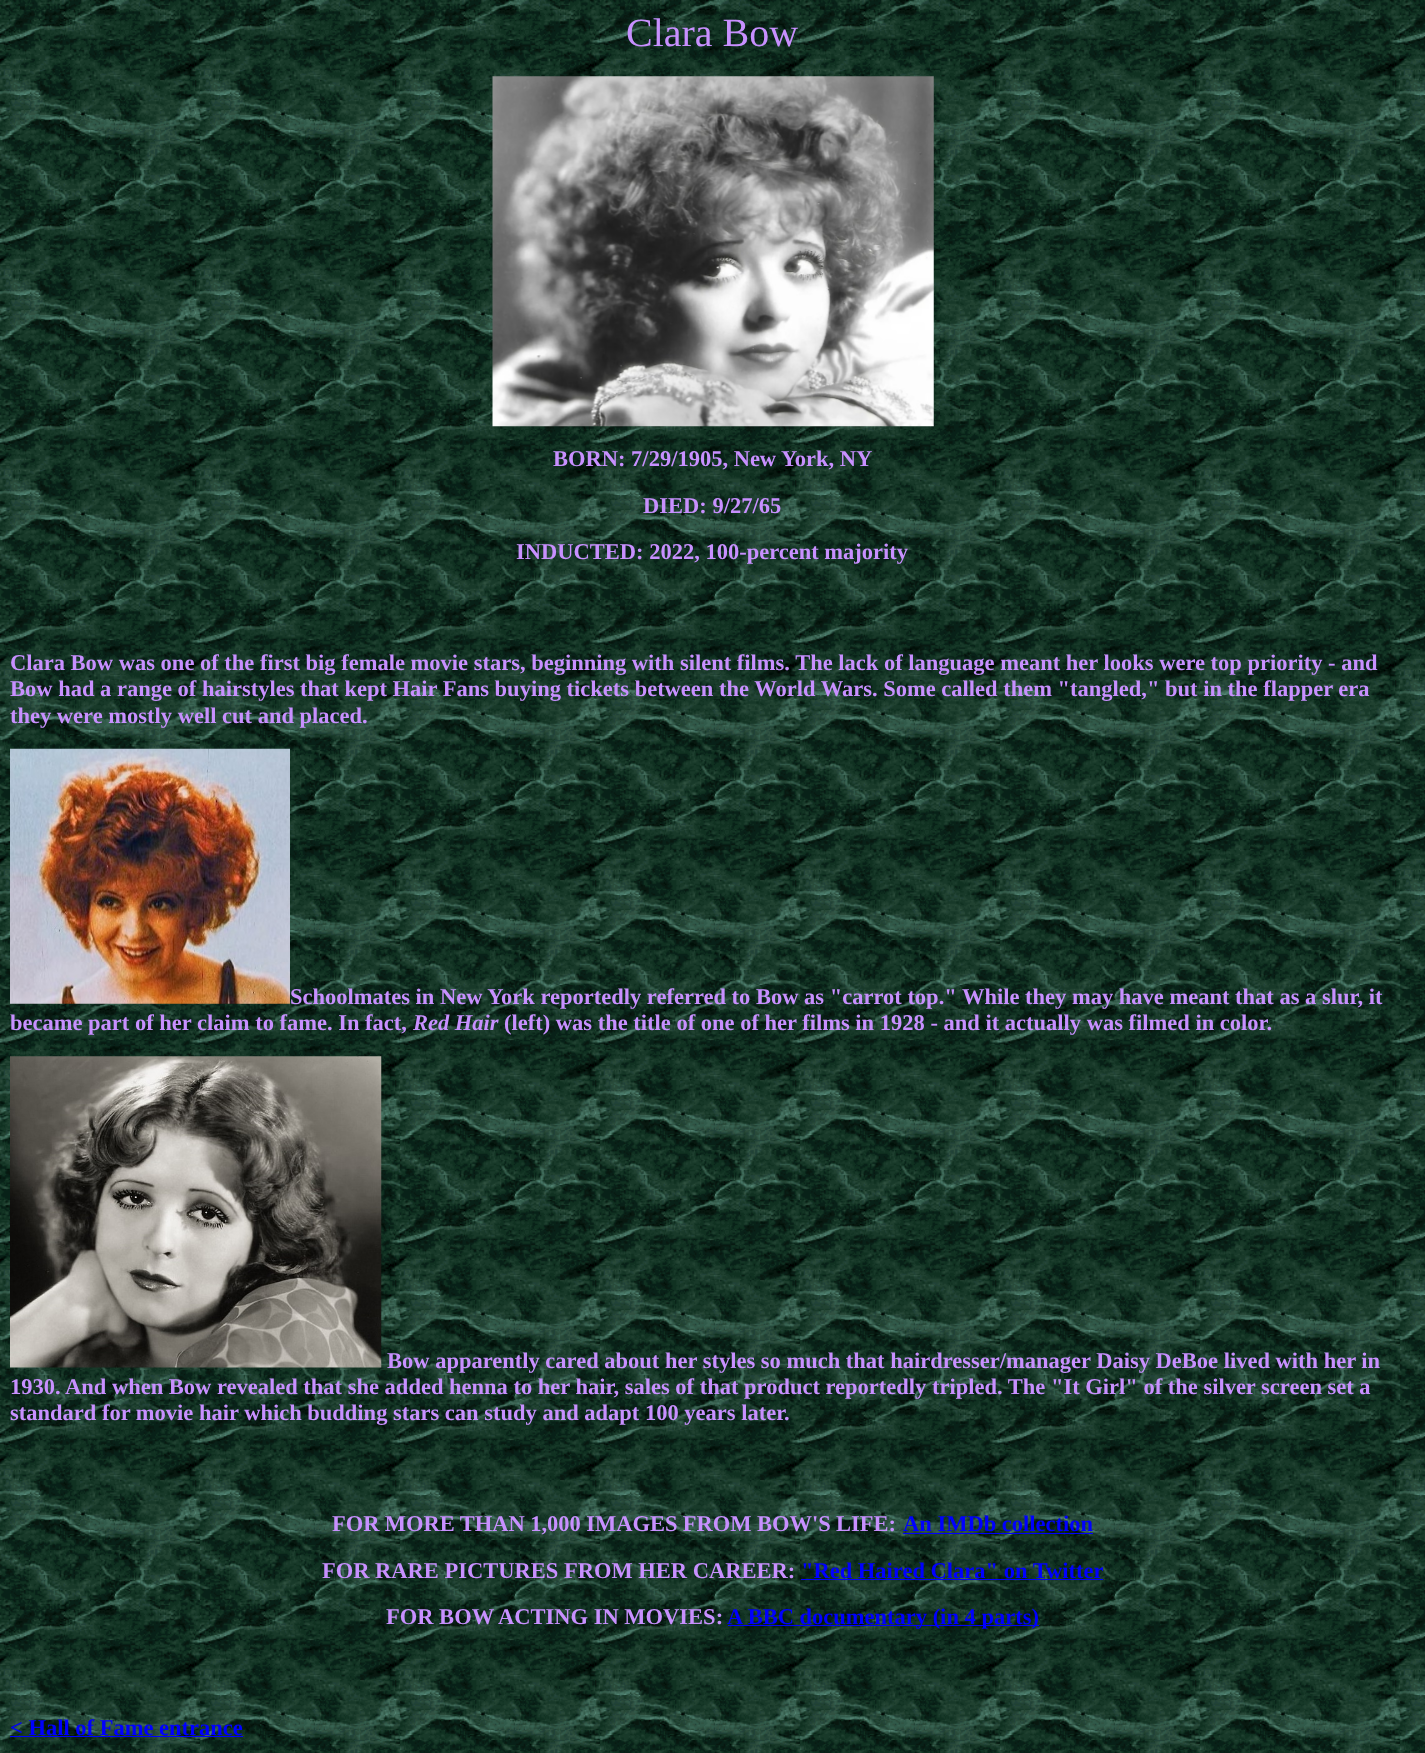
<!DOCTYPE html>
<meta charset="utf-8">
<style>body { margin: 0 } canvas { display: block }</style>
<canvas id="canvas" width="1425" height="1753"></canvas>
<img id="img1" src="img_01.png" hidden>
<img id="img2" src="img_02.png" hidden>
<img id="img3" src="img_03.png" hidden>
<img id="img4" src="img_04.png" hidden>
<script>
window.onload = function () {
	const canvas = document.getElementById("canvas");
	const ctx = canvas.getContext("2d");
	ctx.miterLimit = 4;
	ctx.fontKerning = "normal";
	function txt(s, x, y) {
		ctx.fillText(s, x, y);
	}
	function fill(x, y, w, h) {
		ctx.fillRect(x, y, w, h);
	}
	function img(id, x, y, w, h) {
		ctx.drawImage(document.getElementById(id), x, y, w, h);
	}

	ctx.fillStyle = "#FFFFFF";
	fill(0, 0, 1425, 1753);
	img("img1", 0, 0, 1425, 1753);
	img("img2", 492, 76, 442, 351);
	img("img3", 10, 748, 280, 256);
	img("img4", 10, 1056, 372, 312);
	ctx.fillStyle = "#0000FF";
	fill(903, 1533, 190, 1);
	fill(801, 1579, 302, 1);
	fill(728, 1625, 311, 1);
	fill(10, 1736, 233, 1);
	ctx.font = "40px Liberation Serif";
	ctx.fillStyle = "#C890FF";
	txt("Clara Bow", 626, 46);
	ctx.font = "bold 22.5px Liberation Serif";
	txt("BORN: 7/29/1905, New York, NY", 553, 466);
	txt("DIED: 9/27/65", 643, 513);
	txt("INDUCTED: 2022, 100-percent majority", 516, 559);
	txt("Clara Bow was one of the first big female movie stars, beginning with silent films. The lack of language meant her looks were top priority - and", 10, 670);
	txt("Bow had a range of hairstyles that kept Hair Fans buying tickets between the World Wars. Some called them \"tangled,\" but in the flapper era", 10, 696);
	txt("they were mostly well cut and placed.", 10, 723);
	txt("Schoolmates in New York reportedly referred to Bow as \"carrot top.\" While they may have meant that as a slur, it", 290, 1004);
	txt("became part of her claim to fame. In fact,", 10, 1030);
	ctx.font = "italic bold 22.5px Liberation Serif";
	txt("Red Hair", 413, 1030);
	ctx.font = "bold 22.5px Liberation Serif";
	txt("(left) was the title of one of her films in 1928 - and it actually was filmed in color.", 504, 1030);
	txt("Bow apparently cared about her styles so much that hairdresser/manager Daisy DeBoe lived with her in", 387, 1368);
	txt("1930. And when Bow revealed that she added henna to her hair, sales of that product reportedly tripled. The \"It Girl\" of the silver screen set a", 10, 1394);
	txt("standard for movie hair which budding stars can study and adapt 100 years later.", 10, 1420);
	ctx.wordSpacing = "-0.25px";
	txt("FOR MORE THAN 1,000 IMAGES FROM BOW'S LIFE:", 332, 1531);
	ctx.wordSpacing = "0px";
	ctx.fillStyle = "#0000FF";
	txt("An IMDb collection", 903, 1531);
	ctx.fillStyle = "#C890FF";
	txt("FOR RARE PICTURES FROM HER CAREER:", 322, 1578);
	ctx.fillStyle = "#0000FF";
	txt("\"Red Haired Clara\" on Twitter", 801, 1578);
	ctx.fillStyle = "#C890FF";
	txt("FOR BOW ACTING IN MOVIES:", 386, 1624);
	ctx.fillStyle = "#0000FF";
	txt("A BBC documentary (in 4 parts)", 727, 1624);
	txt("< Hall of Fame entrance", 10, 1735);
};
</script>
